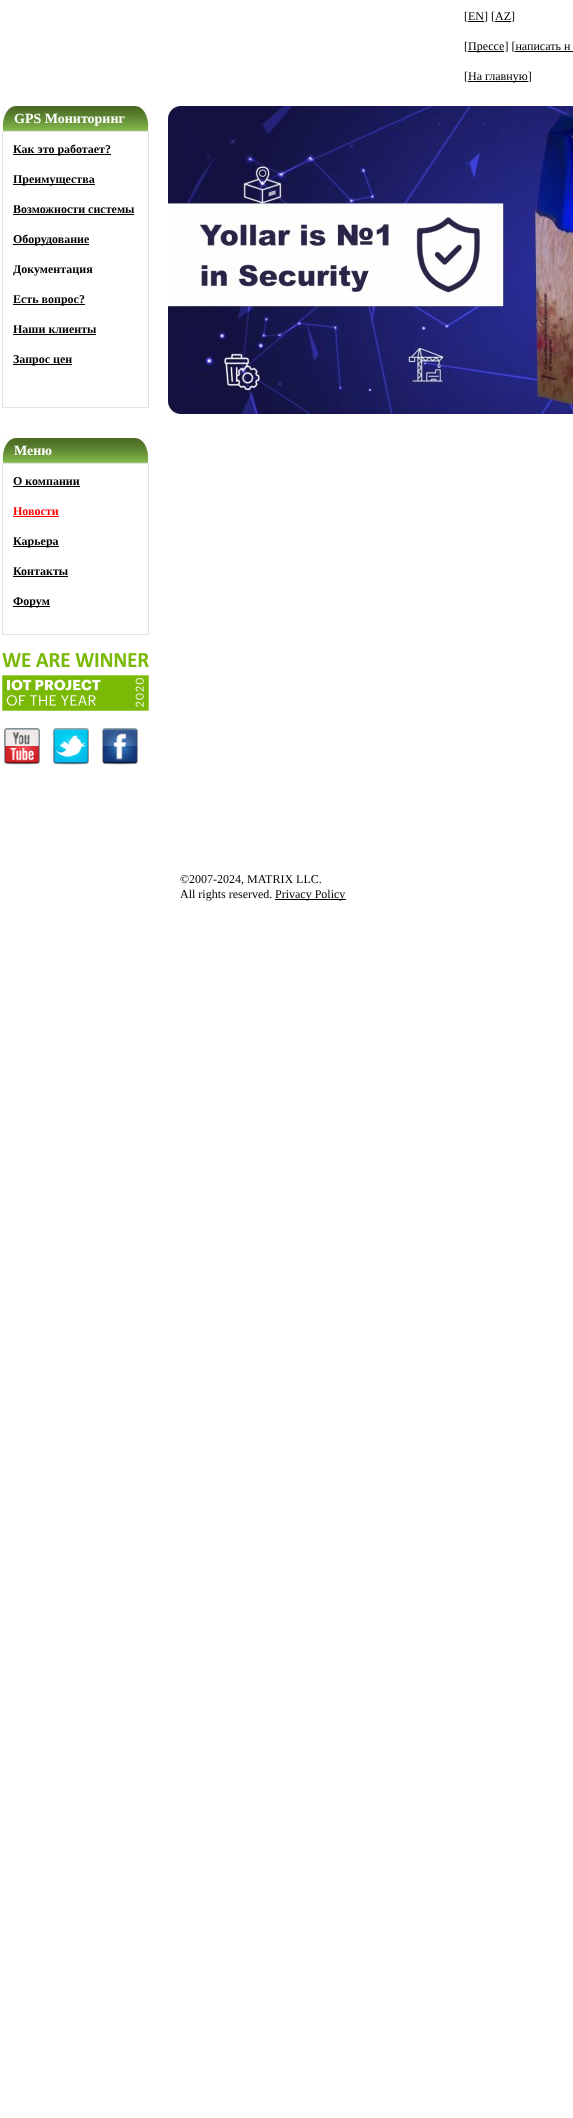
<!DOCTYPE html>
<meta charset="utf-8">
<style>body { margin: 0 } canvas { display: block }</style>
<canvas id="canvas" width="573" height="2118"></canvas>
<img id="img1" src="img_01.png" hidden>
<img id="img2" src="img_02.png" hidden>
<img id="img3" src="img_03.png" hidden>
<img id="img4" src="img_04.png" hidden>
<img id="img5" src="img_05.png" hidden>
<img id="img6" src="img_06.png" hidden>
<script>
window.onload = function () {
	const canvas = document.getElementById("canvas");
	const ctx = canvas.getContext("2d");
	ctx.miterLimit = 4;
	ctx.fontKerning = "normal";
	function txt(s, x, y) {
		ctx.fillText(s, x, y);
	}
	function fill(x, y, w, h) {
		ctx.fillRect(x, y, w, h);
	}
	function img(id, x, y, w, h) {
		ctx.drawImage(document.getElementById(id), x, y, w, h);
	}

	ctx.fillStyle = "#FFFFFF";
	fill(0, 0, 573, 2118);
	ctx.fillStyle = "#000000";
	fill(468, 21, 16, 1);
	fill(495, 21, 16, 1);
	fill(468, 51, 36, 1);
	fill(515, 51, 58, 1);
	fill(468, 81, 60, 1);
	img("img1", 2, 106, 147, 25);
	ctx.strokeStyle = "#E3E3E3";
	ctx.strokeRect(2.5, 131.5, 146, 276);
	fill(13, 154, 98, 1);
	fill(13, 184, 82, 1);
	fill(13, 214, 121, 1);
	fill(13, 244, 76, 1);
	fill(13, 304, 72, 1);
	fill(13, 334, 83, 1);
	fill(13, 364, 59, 1);
	img("img1", 2, 438, 147, 25);
	ctx.strokeRect(2.5, 463.5, 146, 171);
	fill(13, 486, 67, 1);
	ctx.fillStyle = "#FF0000";
	fill(13, 516, 46, 1);
	ctx.fillStyle = "#000000";
	fill(13, 546, 46, 1);
	fill(13, 576, 55, 1);
	fill(13, 606, 37, 1);
	img("img2", 2, 653, 147, 58);
	img("img3", 4, 728, 36, 37);
	img("img4", 53, 728, 36, 37);
	img("img5", 102, 728, 36, 37);
	img("img6", 168, 106, 405, 308);
	fill(275, 899, 71, 1);
	ctx.font = "12px Liberation Serif";
	txt("[EN] [AZ]", 464, 20);
	txt("[", 464, 50);
	txt("Прессе] [написать н", 468, 50);
	txt("[", 464, 80);
	txt("На главную]", 468, 80);
	ctx.font = "bold 14px Liberation Serif";
	ctx.fillStyle = "#FFFFFF";
	txt("GPS Мониторинг", 14, 123);
	ctx.font = "bold 12px Liberation Serif";
	ctx.fillStyle = "#000000";
	txt("Как это работает?", 13, 153);
	txt("Преимущества", 13, 183);
	txt("Возможности системы", 13, 213);
	txt("Оборудование", 13, 243);
	txt("Документация", 13, 273);
	txt("Есть вопрос?", 13, 303);
	txt("Наши клиенты", 13, 333);
	txt("Запрос цен", 13, 363);
	ctx.font = "bold 14px Liberation Serif";
	ctx.fillStyle = "#FFFFFF";
	txt("Меню", 14, 455);
	ctx.font = "bold 12px Liberation Serif";
	ctx.fillStyle = "#000000";
	txt("О компании", 13, 485);
	ctx.fillStyle = "#FF0000";
	txt("Новости", 13, 515);
	ctx.fillStyle = "#000000";
	txt("Карьера", 13, 545);
	txt("Контакты", 13, 575);
	txt("Форум", 13, 605);
	ctx.font = "12px Liberation Serif";
	txt("©2007-2024, MATRIX LLC.", 180, 883);
	txt("All rights reserved.", 180, 898);
	txt("Privacy Policy", 275, 898);
};
</script>
